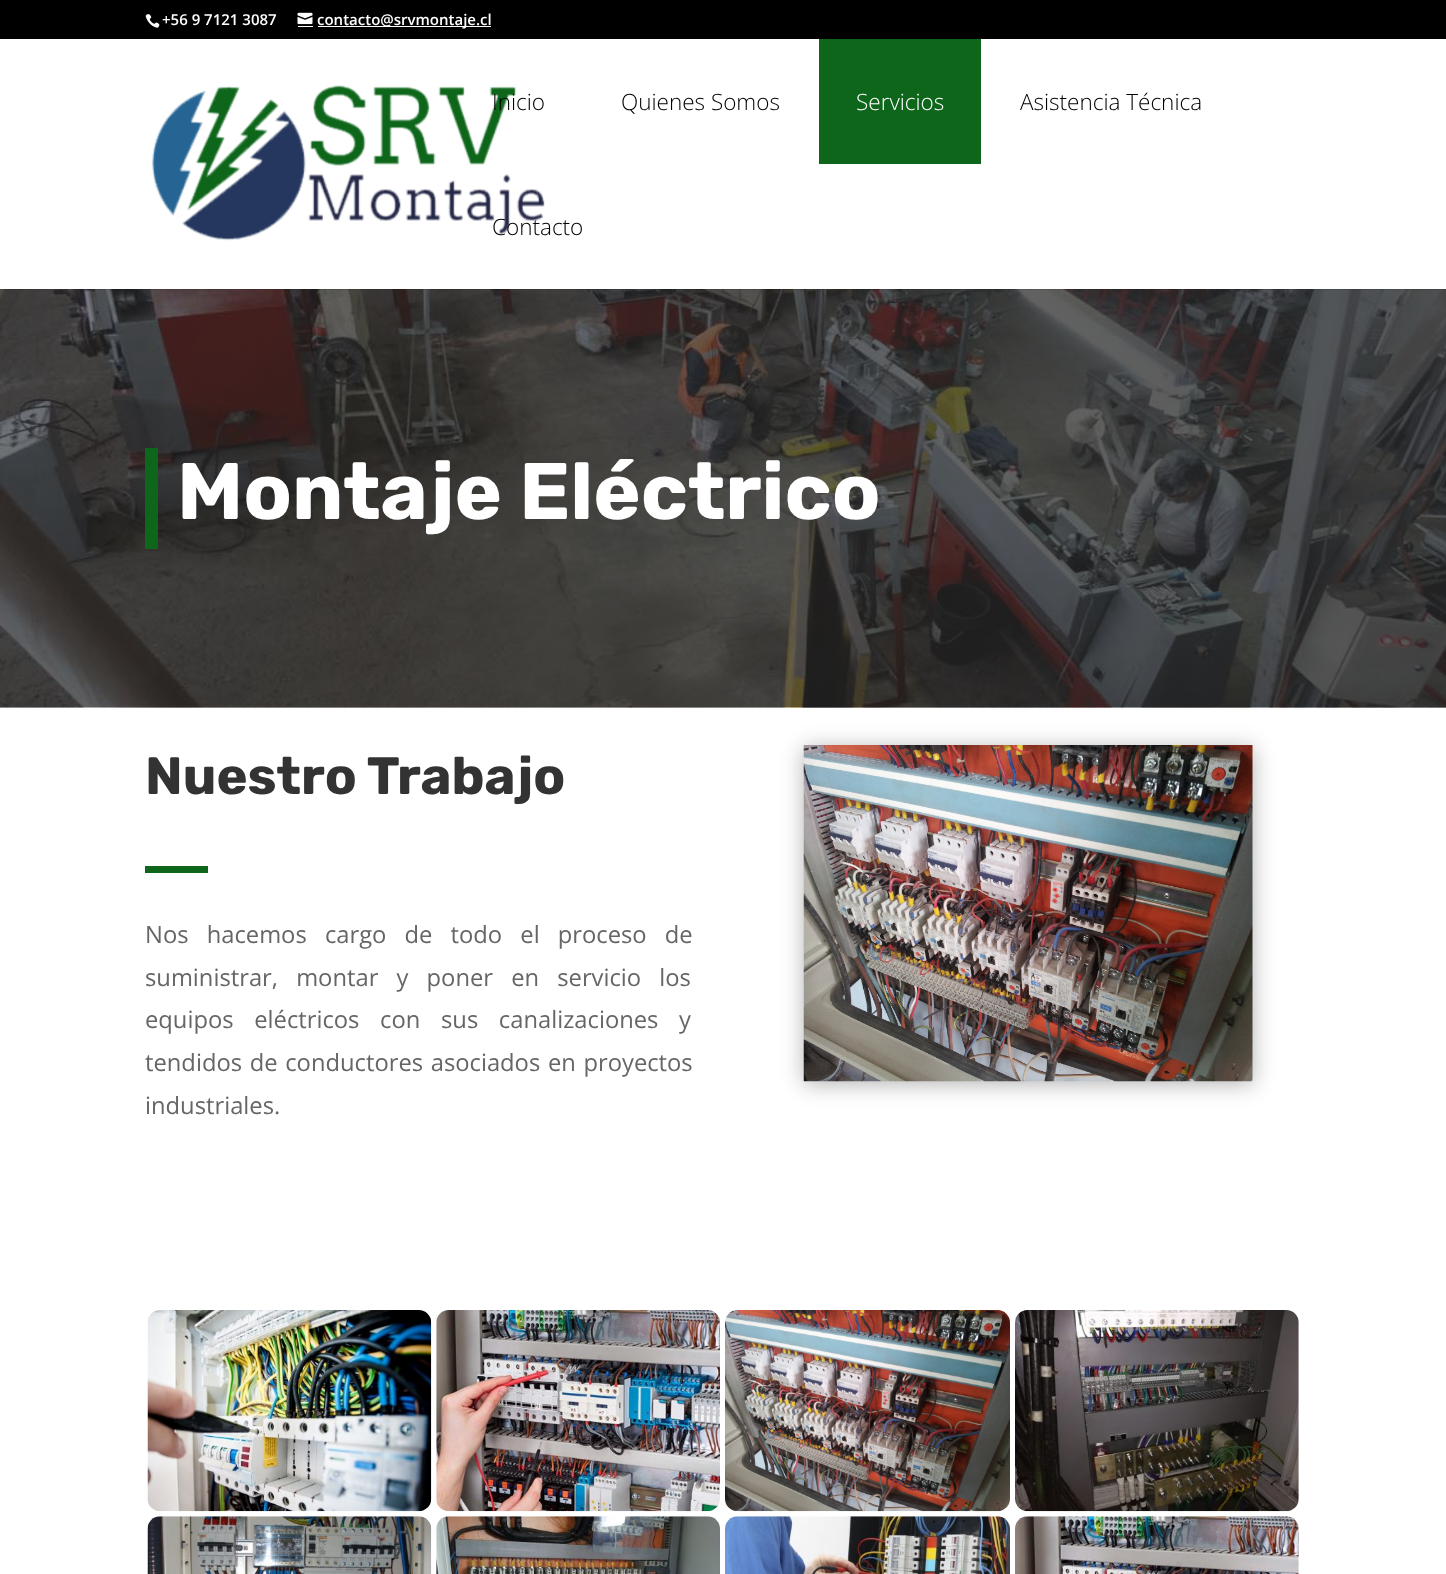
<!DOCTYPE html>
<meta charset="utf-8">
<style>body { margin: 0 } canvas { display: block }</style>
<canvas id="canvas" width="1446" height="1574"></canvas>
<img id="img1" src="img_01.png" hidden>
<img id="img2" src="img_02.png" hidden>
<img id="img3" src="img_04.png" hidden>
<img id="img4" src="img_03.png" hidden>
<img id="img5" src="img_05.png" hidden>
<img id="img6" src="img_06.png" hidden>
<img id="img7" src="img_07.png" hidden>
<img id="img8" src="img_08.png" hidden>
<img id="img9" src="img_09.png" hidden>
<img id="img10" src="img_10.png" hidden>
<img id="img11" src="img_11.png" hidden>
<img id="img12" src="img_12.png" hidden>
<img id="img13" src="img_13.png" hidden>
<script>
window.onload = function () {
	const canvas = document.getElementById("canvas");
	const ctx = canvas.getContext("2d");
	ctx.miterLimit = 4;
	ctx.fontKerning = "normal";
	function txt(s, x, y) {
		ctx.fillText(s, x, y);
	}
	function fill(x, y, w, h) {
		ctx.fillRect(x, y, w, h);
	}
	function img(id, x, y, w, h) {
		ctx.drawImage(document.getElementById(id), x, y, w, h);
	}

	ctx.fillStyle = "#FFFFFF";
	fill(0, 0, 1446, 1574);
	ctx.fillStyle = "#000000";
	fill(0, 0, 1446, 39);
	img("img1", 145, 14, 15, 14);
	img("img2", 297, 12, 16, 13);
	ctx.fillStyle = "#FFFFFF";
	fill(298, 26, 15, 1);
	fill(318, 26, 173, 1);
	img("img3", 0, 289, 1446, 419);
	ctx.fillStyle = "rgba(0, 0, 0, 0.1)";
	fill(0, 289, 1446, 1);
	img("img4", 151, 85, 394, 156);
	ctx.fillStyle = "#0E661B";
	fill(819, 39, 162, 125);
	fill(145, 448, 13, 101);
	fill(145, 866, 63, 7);
	ctx.fillStyle = "rgba(0, 0, 0, 0.3)";
	ctx.filter = "blur(11px)";
	ctx.beginPath();
	ctx.rect(804, 748, 449, 336);
	ctx.fill();
	ctx.filter = "none";
	img("img5", 803, 745, 450, 337);
	img("img6", 147, 1310, 285, 202);
	img("img7", 436, 1310, 284, 202);
	img("img8", 725, 1310, 285, 202);
	img("img9", 1015, 1310, 284, 202);
	img("img10", 147, 1516, 285, 58);
	img("img11", 436, 1516, 284, 58);
	img("img12", 725, 1516, 285, 58);
	img("img13", 1015, 1516, 284, 58);
	ctx.font = "600 15px Open Sans";
	ctx.fillStyle = "#FFFFFF";
	txt("+56 9 7121 3087", 162, 25);
	txt("contacto@srvmontaje.cl", 317, 25);
	ctx.font = "300 22.5px Open Sans";
	ctx.fillStyle = "#000000";
	txt("Inicio", 492, 110);
	txt("Quienes Somos", 621, 110);
	ctx.fillStyle = "#FFFFFF";
	txt("Servicios", 856, 110);
	ctx.fillStyle = "#000000";
	txt("Asistencia Técnica", 1020, 110);
	txt("Contacto", 492, 235);
	ctx.font = "300 80px Rubik";
	ctx.fillStyle = "#FFFFFF";
	txt("Montaje Eléctrico", 177, 519);
	ctx.font = "300 52.5px Rubik";
	ctx.fillStyle = "#333333";
	txt("Nuestro Trabajo", 145, 794);
	ctx.wordSpacing = "12px";
	ctx.font = "23.75px Open Sans";
	ctx.fillStyle = "#666666";
	txt("Nos hacemos cargo de todo el proceso de", 145, 943);
	txt("suministrar, montar y poner en servicio los", 145, 986);
	ctx.wordSpacing = "14.5px";
	txt("equipos eléctricos con sus canalizaciones y", 145, 1028);
	ctx.wordSpacing = "1.5px";
	txt("tendidos de conductores asociados en proyectos", 145, 1071);
	ctx.wordSpacing = "0px";
	txt("industriales.", 145, 1114);
};
</script>
